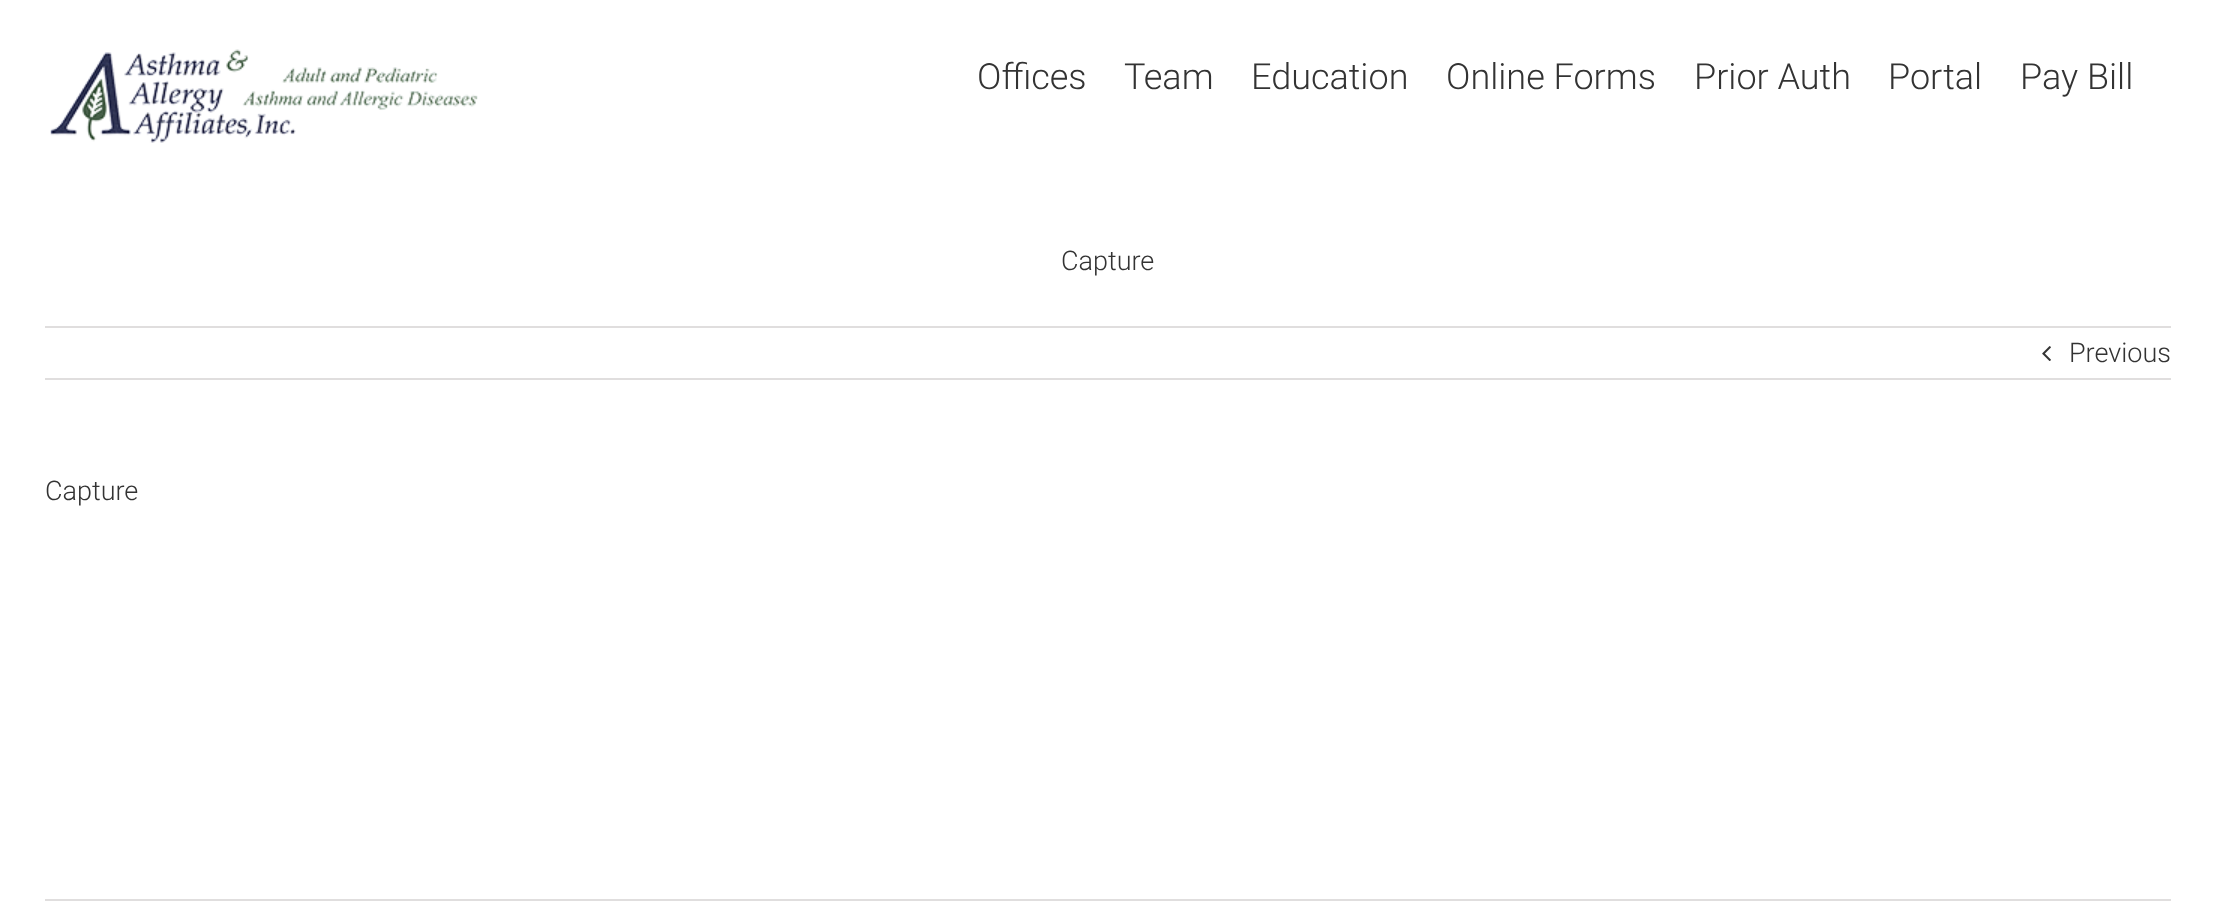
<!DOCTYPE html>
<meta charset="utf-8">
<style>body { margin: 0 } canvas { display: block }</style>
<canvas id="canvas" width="2215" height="914"></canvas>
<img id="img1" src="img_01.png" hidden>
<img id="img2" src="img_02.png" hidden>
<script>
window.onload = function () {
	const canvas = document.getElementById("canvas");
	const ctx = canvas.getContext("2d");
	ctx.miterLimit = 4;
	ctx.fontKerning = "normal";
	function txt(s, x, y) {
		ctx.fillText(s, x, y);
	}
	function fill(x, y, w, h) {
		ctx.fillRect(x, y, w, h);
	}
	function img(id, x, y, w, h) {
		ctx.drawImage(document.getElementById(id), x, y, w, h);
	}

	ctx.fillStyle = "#FFFFFF";
	fill(0, 0, 2215, 914);
	img("img1", 50, 49, 428, 94);
	ctx.fillStyle = "#E0DEDE";
	fill(45, 326, 2126, 2);
	fill(45, 378, 2126, 2);
	img("img2", 2042, 346, 9, 15);
	fill(45, 899, 2126, 2);
	ctx.font = "300 36px Roboto";
	ctx.fillStyle = "#333333";
	txt("Offices", 977, 89);
	txt("Team", 1124, 89);
	txt("Education", 1251, 89);
	txt("Online Forms", 1446, 89);
	txt("Prior Auth", 1694, 89);
	txt("Portal", 1888, 89);
	txt("Pay Bill", 2020, 89);
	ctx.font = "300 27px Roboto";
	txt("Capture", 1061, 270);
	txt("Previous", 2069, 362);
	txt("Capture", 45, 500);
};
</script>
